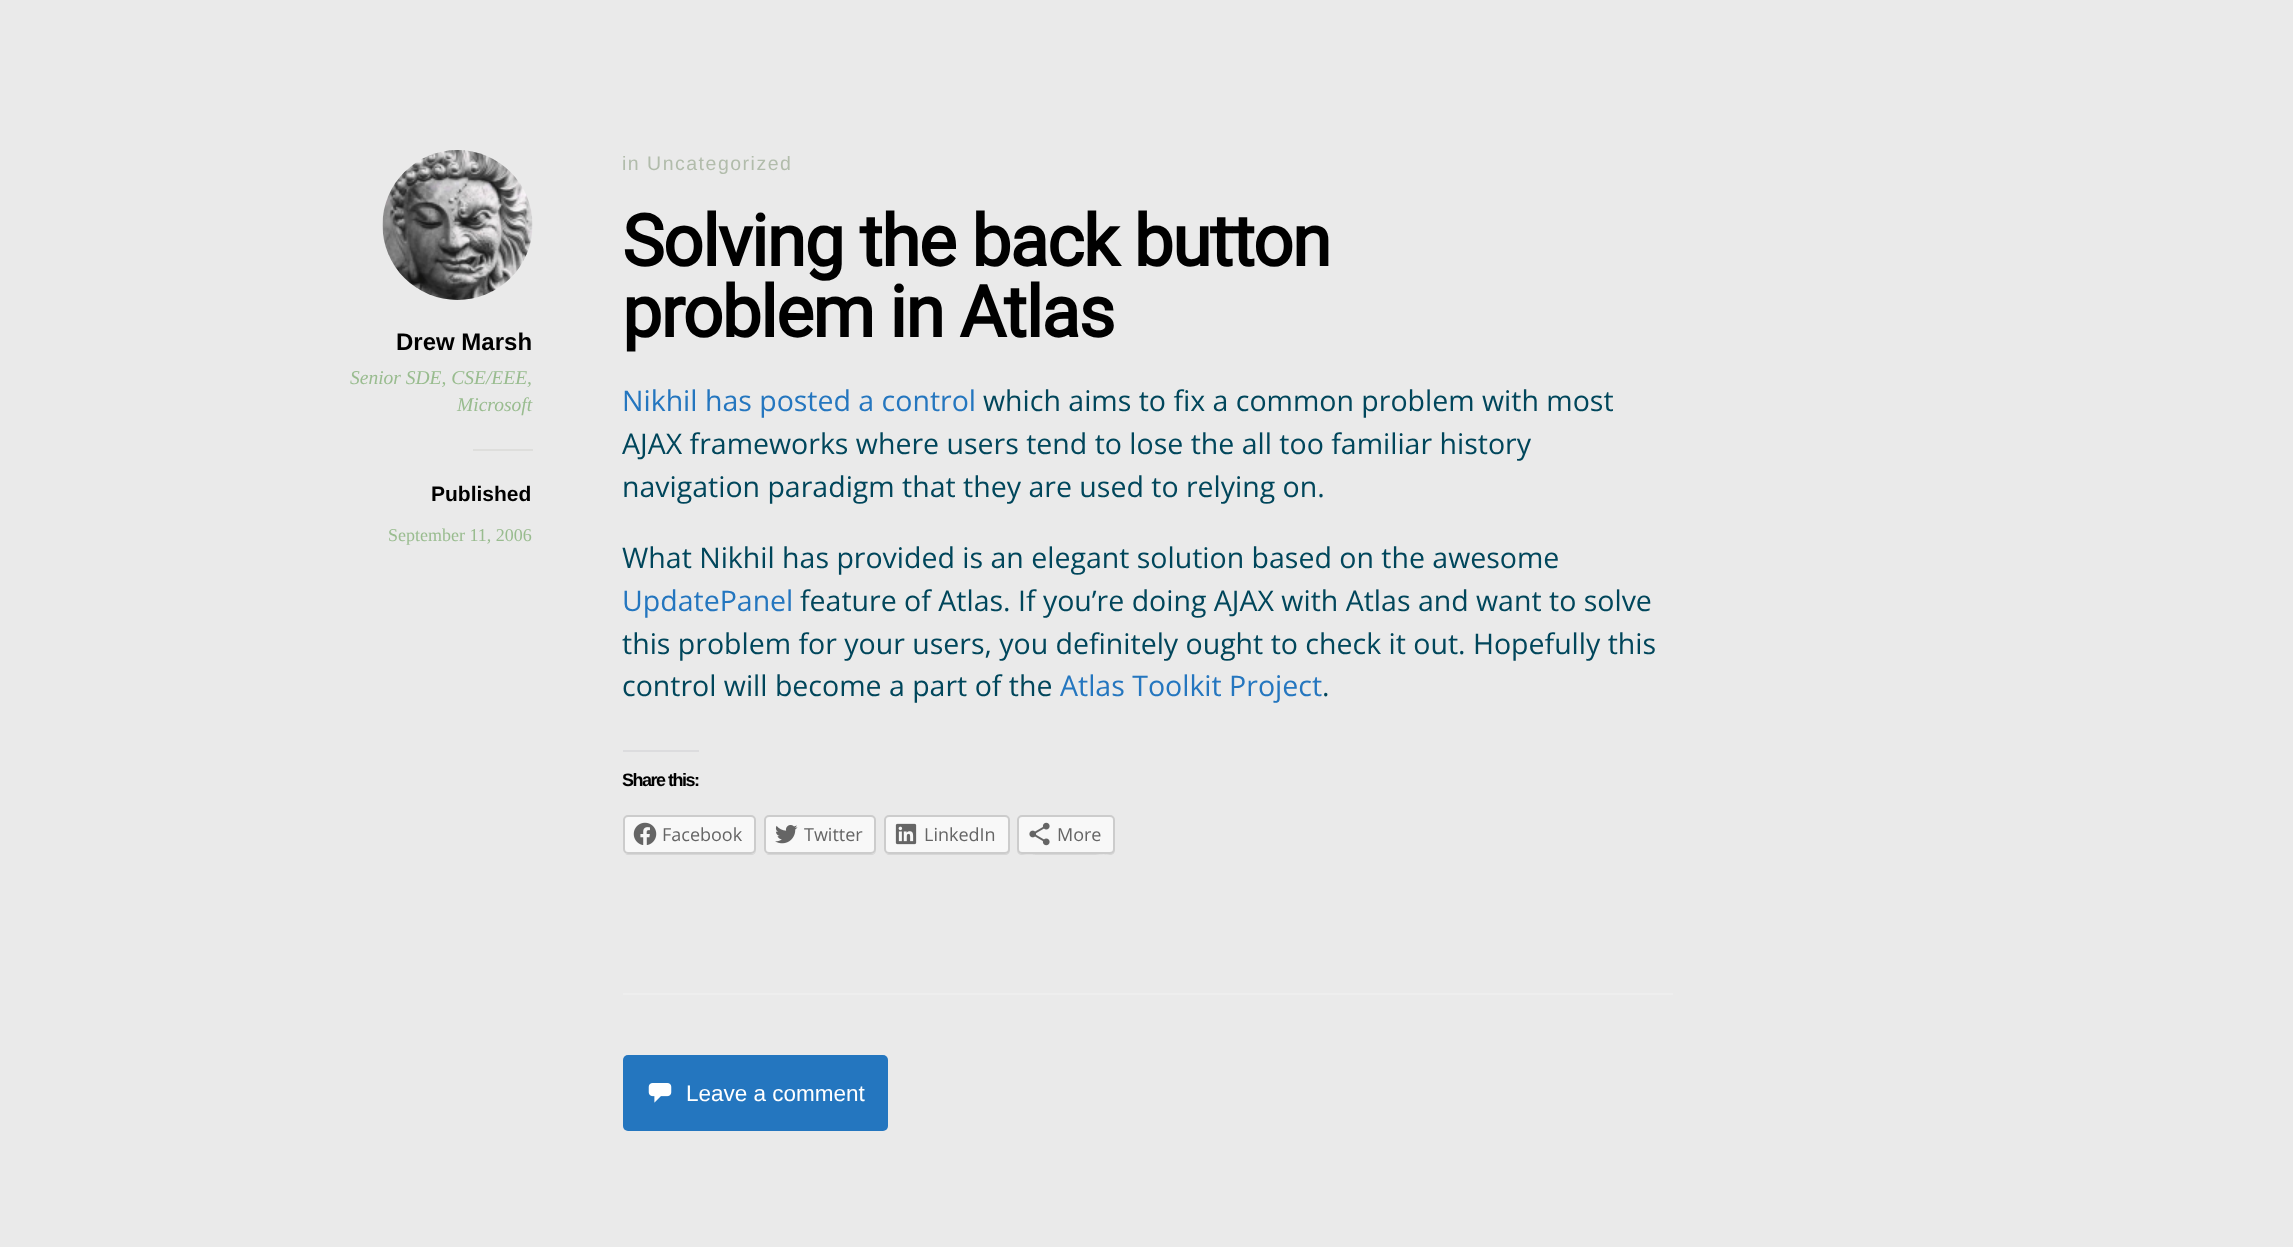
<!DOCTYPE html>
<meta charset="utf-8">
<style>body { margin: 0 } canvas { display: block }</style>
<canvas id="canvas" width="2293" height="1247"></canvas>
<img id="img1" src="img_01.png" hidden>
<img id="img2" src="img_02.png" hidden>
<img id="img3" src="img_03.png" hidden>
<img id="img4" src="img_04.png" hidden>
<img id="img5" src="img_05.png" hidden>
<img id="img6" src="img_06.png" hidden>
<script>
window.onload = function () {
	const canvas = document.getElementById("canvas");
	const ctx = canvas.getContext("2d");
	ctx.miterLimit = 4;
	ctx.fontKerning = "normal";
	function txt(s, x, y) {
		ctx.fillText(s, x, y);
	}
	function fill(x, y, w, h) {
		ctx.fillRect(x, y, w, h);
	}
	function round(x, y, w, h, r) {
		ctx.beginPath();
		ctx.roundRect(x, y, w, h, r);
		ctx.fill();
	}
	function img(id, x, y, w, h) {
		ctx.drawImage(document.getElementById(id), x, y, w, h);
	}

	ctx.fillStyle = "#EAEAEA";
	fill(0, 0, 2293, 1247);
	img("img1", 382, 150, 151, 150);
	ctx.fillStyle = "#DEDEDC";
	fill(473, 449, 60, 2);
	ctx.fillStyle = "#DCDCDE";
	fill(623, 750, 76, 2);
	ctx.fillStyle = "#D7D7D7";
	ctx.beginPath();
	ctx.moveTo(623, 851);
	ctx.bezierCurveTo(624, 853, 626, 855, 628, 855);
	ctx.lineTo(751, 855);
	ctx.bezierCurveTo(754, 855, 756, 853, 756, 850);
	ctx.lineTo(756, 849);
	ctx.bezierCurveTo(756, 851, 754, 854, 752, 854);
	ctx.lineTo(627, 854);
	ctx.bezierCurveTo(625, 854, 624, 853, 623, 851);
	ctx.closePath();
	ctx.fill();
	ctx.fillStyle = "#F8F8F8";
	ctx.beginPath();
	ctx.roundRect(624, 816, 131, 37, 4);
	ctx.fill();
	ctx.strokeStyle = "#CCCCCC";
	ctx.lineWidth = 2;
	ctx.stroke();
	img("img2", 633, 822, 24, 23);
	ctx.fillStyle = "#D7D7D7";
	ctx.beginPath();
	ctx.moveTo(764, 851);
	ctx.bezierCurveTo(765, 853, 767, 855, 769, 855);
	ctx.lineTo(871, 855);
	ctx.bezierCurveTo(874, 855, 876, 853, 876, 850);
	ctx.lineTo(876, 849);
	ctx.bezierCurveTo(876, 851, 874, 854, 872, 854);
	ctx.lineTo(768, 854);
	ctx.bezierCurveTo(766, 854, 765, 853, 764, 851);
	ctx.closePath();
	ctx.fill();
	ctx.fillStyle = "#F8F8F8";
	ctx.beginPath();
	ctx.roundRect(765, 816, 110, 37, 4);
	ctx.fill();
	ctx.stroke();
	img("img3", 775, 825, 23, 19);
	ctx.fillStyle = "#D7D7D7";
	ctx.beginPath();
	ctx.moveTo(884, 851);
	ctx.bezierCurveTo(885, 853, 887, 855, 889, 855);
	ctx.lineTo(1005, 855);
	ctx.bezierCurveTo(1008, 855, 1010, 853, 1010, 850);
	ctx.lineTo(1010, 821);
	ctx.lineTo(1009, 819);
	ctx.lineTo(1010, 844);
	ctx.bezierCurveTo(1010, 847, 1010, 853, 1005, 854);
	ctx.lineTo(888, 854);
	ctx.bezierCurveTo(886, 853, 885, 853, 884, 851);
	ctx.closePath();
	ctx.fill();
	ctx.fillStyle = "#F8F8F8";
	ctx.beginPath();
	ctx.roundRect(885, 816, 124, 37, 4);
	ctx.fill();
	ctx.stroke();
	img("img4", 895, 823, 22, 22);
	ctx.fillStyle = "#D7D7D7";
	ctx.beginPath();
	ctx.moveTo(1017, 849);
	ctx.lineTo(1017, 850);
	ctx.bezierCurveTo(1017, 853, 1019, 855, 1022, 855);
	ctx.lineTo(1110, 855);
	ctx.bezierCurveTo(1113, 855, 1115, 853, 1115, 850);
	ctx.lineTo(1115, 821);
	ctx.lineTo(1114, 819);
	ctx.lineTo(1114, 850);
	ctx.bezierCurveTo(1113, 857, 1096, 854, 1095, 854);
	ctx.lineTo(1036, 854);
	ctx.bezierCurveTo(1035, 854, 1017, 857, 1017, 849);
	ctx.closePath();
	ctx.fill();
	ctx.fillStyle = "#F8F8F8";
	ctx.beginPath();
	ctx.roundRect(1018, 816, 96, 37, 4);
	ctx.fill();
	ctx.stroke();
	img("img5", 1029, 822, 21, 24);
	ctx.fillStyle = "#EEEEEE";
	fill(623, 993, 1050, 2);
	ctx.fillStyle = "#2476BF";
	round(623, 1055, 265, 76, 5);
	img("img6", 648, 1083, 24, 20);
	ctx.font = "bold 24px Liberation Sans";
	ctx.fillStyle = "#000000";
	txt("Drew Marsh", 396, 350);
	ctx.font = "italic 19.5px Liberation Serif";
	ctx.fillStyle = "#99BC8F";
	txt("Senior SDE, CSE/EEE,", 350, 384);
	txt("Microsoft", 457, 411);
	ctx.font = "bold 21px Liberation Sans";
	ctx.fillStyle = "#000000";
	txt("Published", 431, 501);
	ctx.font = "18px Liberation Serif";
	ctx.fillStyle = "#99BC8F";
	txt("September 11, 2006", 388, 541);
	ctx.letterSpacing = "1.5px";
	ctx.font = "19.5px Liberation Sans";
	ctx.fillStyle = "#B1BCAB";
	txt("in Uncategorized", 622, 170);
	ctx.letterSpacing = "-1.5px";
	ctx.font = "bold 71.25px Roboto";
	ctx.fillStyle = "#000000";
	txt("Solving the back button", 622, 266);
	txt("problem in Atlas", 622, 337);
	ctx.letterSpacing = "0px";
	ctx.font = "28.5px Open Sans";
	ctx.fillStyle = "#2476BF";
	txt("Nikhil has posted a control", 622, 411);
	ctx.fillStyle = "#00465B";
	txt("which aims to fix a common problem with most", 983, 411);
	txt("AJAX frameworks where users tend to lose the all too familiar history", 622, 454);
	txt("navigation paradigm that they are used to relying on.", 622, 497);
	txt("What Nikhil has provided is an elegant solution based on the awesome", 622, 568);
	ctx.fillStyle = "#2476BF";
	txt("UpdatePanel", 622, 611);
	ctx.fillStyle = "#00465B";
	txt("feature of Atlas. If you’re doing AJAX with Atlas and want to solve", 800, 611);
	txt("this problem for your users, you definitely ought to check it out. Hopefully this", 622, 654);
	txt("control will become a part of the", 622, 696);
	ctx.fillStyle = "#2476BF";
	txt("Atlas Toolkit Project", 1060, 696);
	ctx.fillStyle = "#00465B";
	txt(".", 1322, 696);
	ctx.letterSpacing = "-1.5px";
	ctx.font = "bold 18px Liberation Sans";
	ctx.fillStyle = "#000000";
	txt("Share this:", 622, 786);
	ctx.letterSpacing = "0px";
	ctx.font = "18px Open Sans";
	ctx.fillStyle = "#656565";
	txt("Facebook", 662, 841);
	txt("Twitter", 804, 841);
	txt("LinkedIn", 924, 841);
	txt("More", 1057, 841);
	ctx.font = "22.5px Liberation Sans";
	ctx.fillStyle = "#FFFFFF";
	txt("Leave a comment", 686, 1101);
};
</script>
